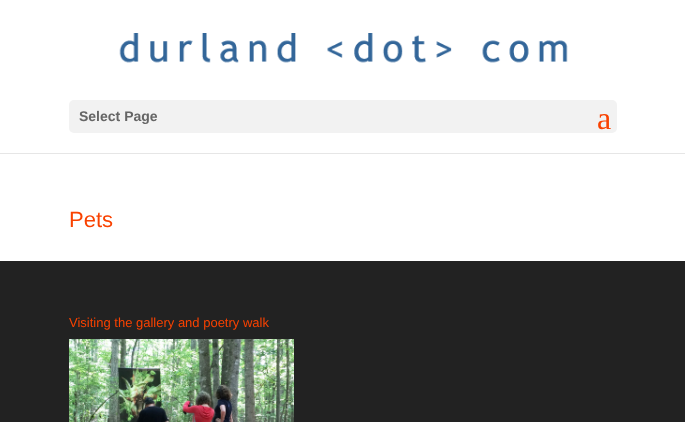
<!DOCTYPE html>
<meta charset="utf-8">
<style>body { margin: 0 } canvas { display: block }</style>
<canvas id="canvas" width="685" height="422"></canvas>
<img id="img1" src="img_01.png" hidden>
<img id="img2" src="img_02.png" hidden>
<script>
window.onload = function () {
	const canvas = document.getElementById("canvas");
	const ctx = canvas.getContext("2d");
	ctx.miterLimit = 4;
	ctx.fontKerning = "normal";
	function txt(s, x, y) {
		ctx.fillText(s, x, y);
	}
	function fill(x, y, w, h) {
		ctx.fillRect(x, y, w, h);
	}
	function round(x, y, w, h, r) {
		ctx.beginPath();
		ctx.roundRect(x, y, w, h, r);
		ctx.fill();
	}
	function img(id, x, y, w, h) {
		ctx.drawImage(document.getElementById(id), x, y, w, h);
	}

	ctx.fillStyle = "#FFFFFF";
	fill(0, 0, 685, 422);
	ctx.fillStyle = "#E6E6E6";
	fill(0, 153, 685, 1);
	img("img1", 119, 33, 449, 30);
	ctx.fillStyle = "#F2F2F2";
	round(69, 100, 548, 33, 5);
	ctx.fillStyle = "#222222";
	fill(0, 261, 685, 161);
	img("img2", 69, 339, 225, 83);
	ctx.font = "bold 14px Liberation Sans";
	ctx.fillStyle = "#666666";
	txt("Select Page", 79, 121);
	ctx.font = "32px Liberation Serif";
	ctx.fillStyle = "#F94201";
	txt("a", 597, 129);
	ctx.font = "22px Liberation Sans";
	txt("Pets", 69, 227);
	ctx.font = "13px Liberation Sans";
	txt("Visiting the gallery and poetry walk", 69, 327);
};
</script>
